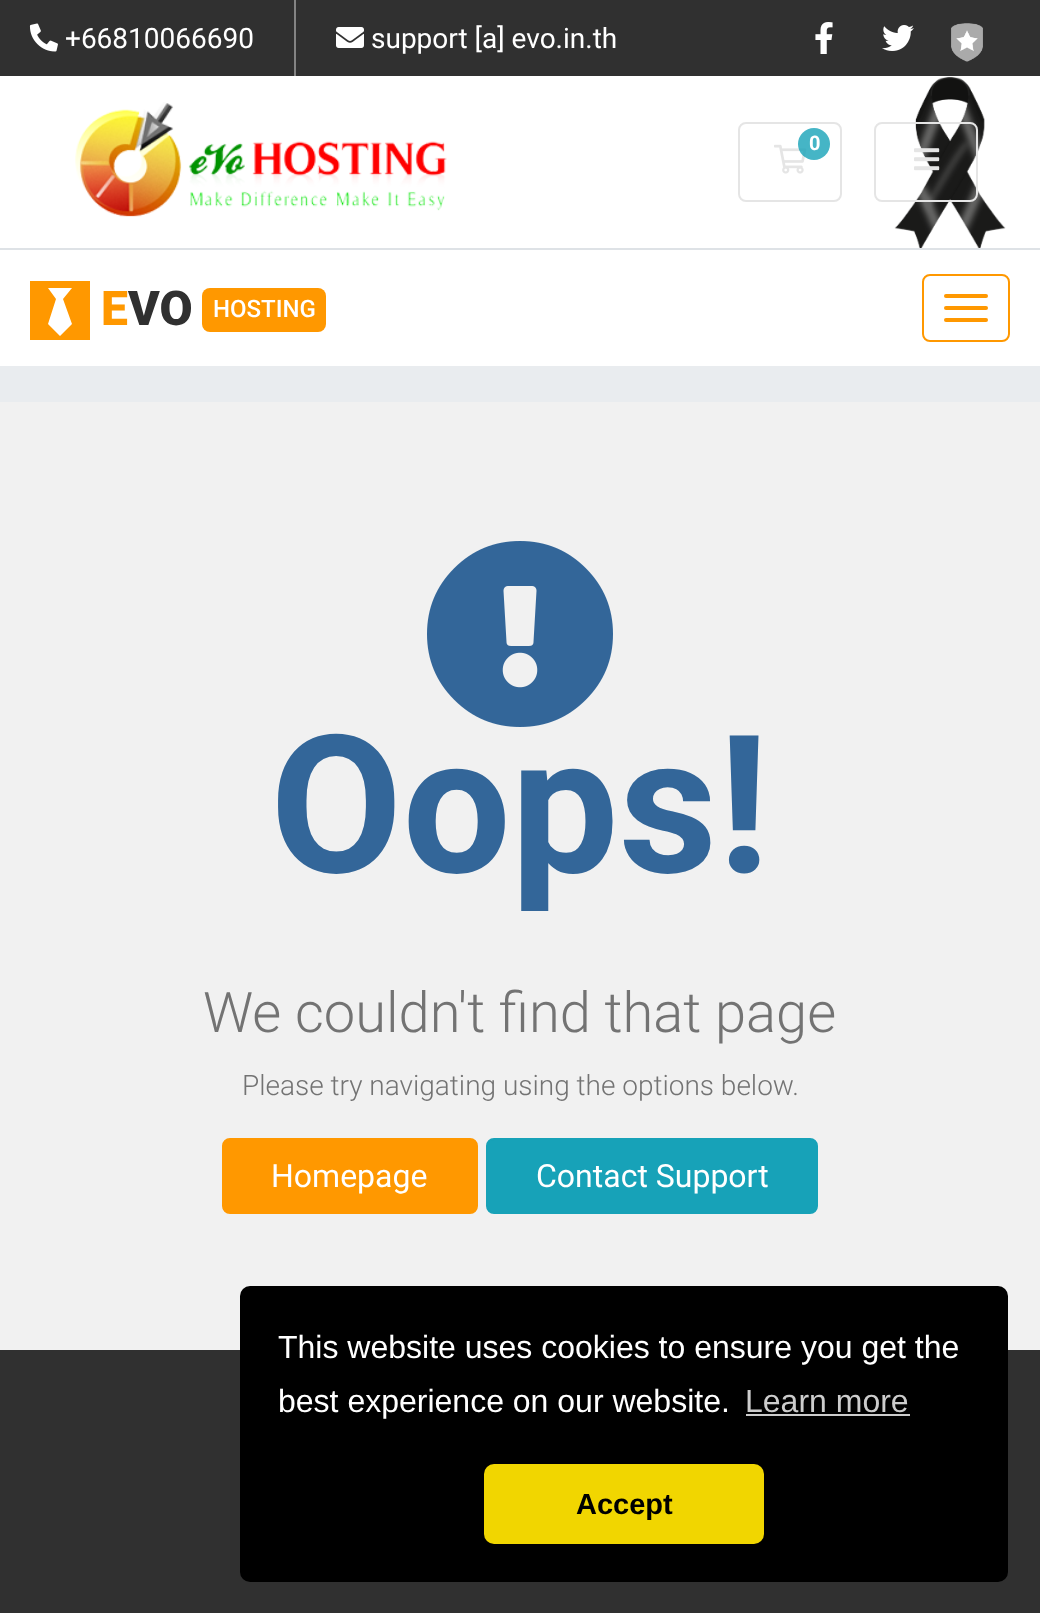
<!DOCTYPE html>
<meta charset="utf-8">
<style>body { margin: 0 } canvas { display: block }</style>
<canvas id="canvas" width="1040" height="1613"></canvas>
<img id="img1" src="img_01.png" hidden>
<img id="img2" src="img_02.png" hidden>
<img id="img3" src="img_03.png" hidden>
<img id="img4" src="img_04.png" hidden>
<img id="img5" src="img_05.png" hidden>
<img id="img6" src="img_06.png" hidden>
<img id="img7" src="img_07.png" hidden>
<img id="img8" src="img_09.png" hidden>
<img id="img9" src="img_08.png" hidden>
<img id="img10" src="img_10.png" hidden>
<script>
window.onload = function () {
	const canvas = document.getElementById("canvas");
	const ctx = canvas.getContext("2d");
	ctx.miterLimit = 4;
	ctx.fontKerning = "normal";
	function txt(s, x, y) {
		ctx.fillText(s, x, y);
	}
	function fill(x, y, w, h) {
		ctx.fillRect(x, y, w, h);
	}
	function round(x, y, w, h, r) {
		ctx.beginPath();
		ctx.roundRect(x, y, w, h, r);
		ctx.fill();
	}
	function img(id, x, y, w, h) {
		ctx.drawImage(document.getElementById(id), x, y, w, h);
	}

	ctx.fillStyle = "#F1F1F1";
	fill(0, 0, 1040, 1613);
	ctx.fillStyle = "#FFFFFF";
	fill(0, 76, 1040, 172);
	ctx.fillStyle = "#303030";
	fill(0, 0, 1040, 76);
	ctx.fillStyle = "#838383";
	fill(294, 0, 2, 76);
	img("img1", 29, 23, 29, 29);
	img("img2", 336, 27, 28, 21);
	img("img3", 815, 22, 18, 32);
	img("img4", 882, 25, 32, 26);
	img("img5", 951, 23, 32, 39);
	img("img6", 75, 102, 372, 115);
	ctx.beginPath();
	ctx.roundRect(739, 123, 102, 78, 7);
	ctx.strokeStyle = "#E5E5E5";
	ctx.lineWidth = 2;
	ctx.stroke();
	img("img7", 774, 144, 33, 30);
	ctx.fillStyle = "rgba(23, 162, 184, 0.8)";
	ctx.beginPath();
	ctx.arc(814, 144, 16, 0, Math.PI * 2);
	ctx.fill();
	img("img8", 894, 77, 112, 171);
	ctx.beginPath();
	ctx.roundRect(875, 123, 102, 78, 7);
	ctx.stroke();
	img("img9", 914, 148, 26, 23);
	ctx.fillStyle = "#FFFFFF";
	fill(0, 250, 1040, 116);
	ctx.fillStyle = "#DEE2E6";
	fill(0, 248, 1040, 2);
	ctx.fillStyle = "#FF9800";
	ctx.beginPath();
	ctx.moveTo(30, 281);
	ctx.lineTo(90, 281);
	ctx.lineTo(90, 340);
	ctx.lineTo(30, 340);
	ctx.closePath();
	ctx.moveTo(72, 324);
	ctx.lineTo(63, 299);
	ctx.lineTo(72, 288);
	ctx.lineTo(48, 288);
	ctx.lineTo(56, 299);
	ctx.lineTo(48, 324);
	ctx.lineTo(60, 336);
	ctx.closePath();
	ctx.fill();
	round(202, 288, 124, 44, 8);
	ctx.beginPath();
	ctx.roundRect(923, 275, 86, 66, 7);
	ctx.strokeStyle = "#FF9800";
	ctx.stroke();
	round(944, 294, 44, 4, 2);
	round(944, 306, 44, 4, 2);
	round(944, 318, 44, 4, 2);
	ctx.fillStyle = "#E9ECEF";
	fill(0, 366, 1040, 36);
	img("img10", 427, 541, 186, 186);
	ctx.fillStyle = "#FF9800";
	ctx.beginPath();
	ctx.roundRect(223, 1139, 254, 74, 7);
	ctx.fill();
	ctx.stroke();
	ctx.fillStyle = "#17A2B8";
	ctx.beginPath();
	ctx.roundRect(487, 1139, 330, 74, 7);
	ctx.fill();
	ctx.strokeStyle = "#17A2B8";
	ctx.stroke();
	ctx.fillStyle = "#303030";
	fill(0, 1350, 1040, 263);
	ctx.fillStyle = "#000000";
	round(240, 1286, 768, 296, 10);
	ctx.fillStyle = "#CCCCCC";
	fill(746, 1414, 164, 2);
	ctx.fillStyle = "#F1D600";
	round(484, 1464, 280, 80, 10);
	ctx.font = "28px Roboto";
	ctx.fillStyle = "#FFFFFF";
	txt("+66810066690", 65, 48);
	txt("support [a] evo.in.th", 371, 48);
	ctx.font = "bold 20px Roboto";
	txt("0", 809, 150);
	ctx.font = "900 48px Roboto";
	ctx.fillStyle = "#FF9800";
	txt("E", 101, 325);
	ctx.fillStyle = "#303030";
	txt("VO", 128, 325);
	ctx.font = "500 24px Roboto";
	ctx.fillStyle = "#FFFFFF";
	txt("HOSTING", 213, 317);
	ctx.font = "bold 192px Roboto";
	ctx.fillStyle = "#336699";
	txt("Oops!", 270, 872);
	ctx.font = "300 56px Roboto";
	ctx.fillStyle = "#737373";
	txt("We couldn't find that page", 203, 1032);
	ctx.font = "300 28px Roboto";
	txt("Please try navigating using the options below.", 242, 1095);
	ctx.font = "32px Roboto";
	ctx.fillStyle = "#FFFFFF";
	txt("Homepage", 271, 1187);
	txt("Contact Support", 536, 1187);
	ctx.font = "32px Liberation Sans";
	txt("This website uses cookies to ensure you get the", 278, 1358);
	txt("best experience on our website.", 278, 1412);
	ctx.fillStyle = "#CCCCCC";
	txt("Learn more", 745, 1412);
	ctx.font = "bold 29px Liberation Sans";
	ctx.fillStyle = "#000000";
	txt("Accept", 576, 1514);
};
</script>
